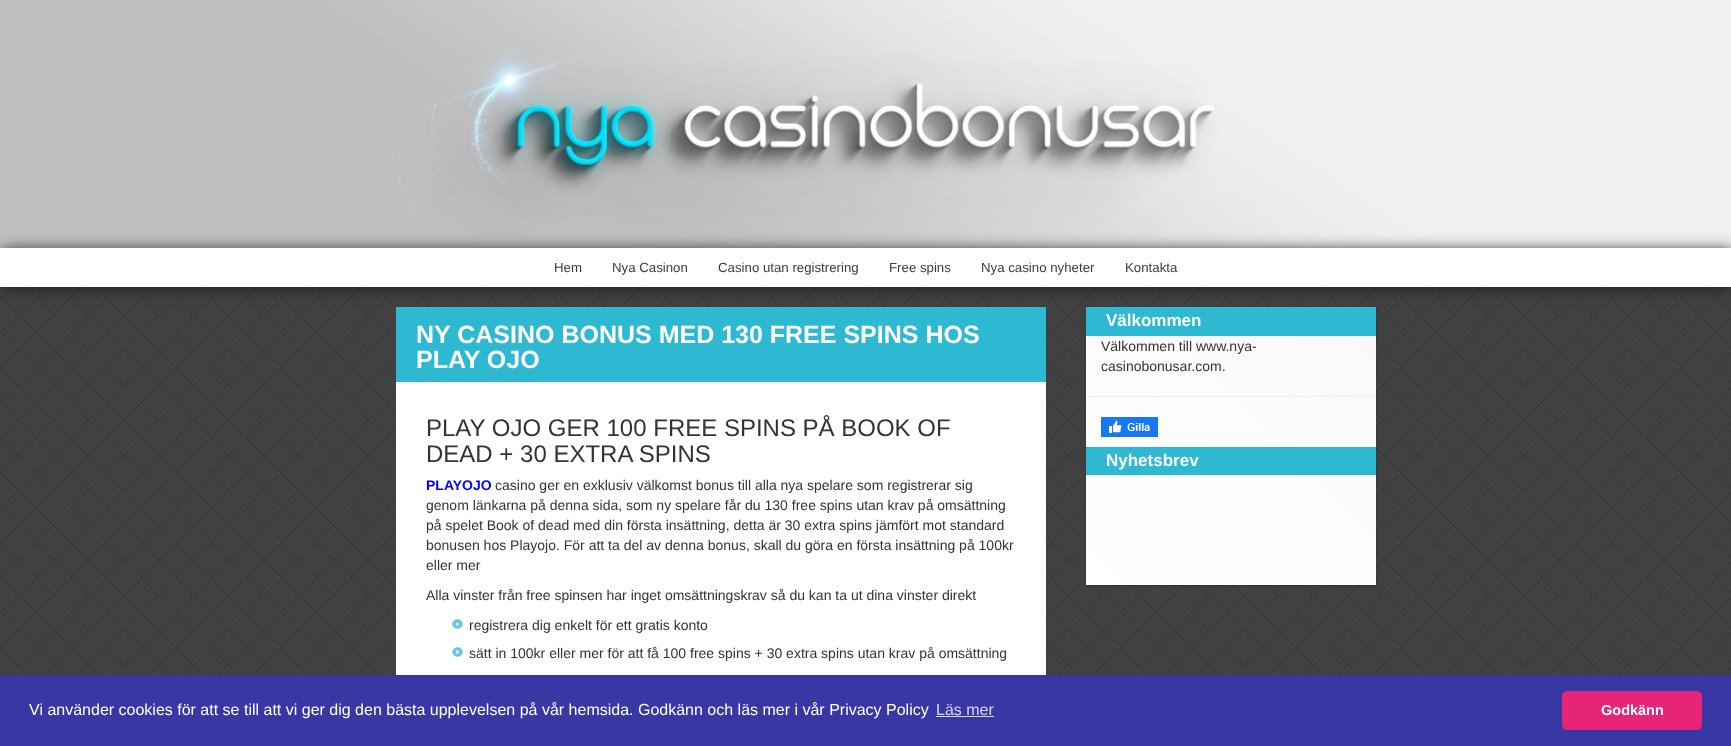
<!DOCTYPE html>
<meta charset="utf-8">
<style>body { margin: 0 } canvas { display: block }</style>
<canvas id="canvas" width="1731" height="746"></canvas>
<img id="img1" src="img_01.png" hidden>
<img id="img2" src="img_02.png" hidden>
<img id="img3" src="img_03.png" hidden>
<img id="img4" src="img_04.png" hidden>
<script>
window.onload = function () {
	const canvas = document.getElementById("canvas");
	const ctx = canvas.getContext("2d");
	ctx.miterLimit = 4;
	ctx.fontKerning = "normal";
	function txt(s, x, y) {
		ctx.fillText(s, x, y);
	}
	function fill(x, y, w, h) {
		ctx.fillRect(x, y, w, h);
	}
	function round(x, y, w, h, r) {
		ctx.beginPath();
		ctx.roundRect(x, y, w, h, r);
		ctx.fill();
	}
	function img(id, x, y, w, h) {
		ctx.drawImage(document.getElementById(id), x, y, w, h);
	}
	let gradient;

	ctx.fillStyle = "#FFFFFF";
	fill(0, 0, 1731, 746);
	img("img1", 0, 0, 1731, 248);
	img("img2", 0, 287, 1731, 388);
	ctx.fillStyle = "#222222";
	ctx.filter = "blur(7.5px)";
	ctx.beginPath();
	ctx.rect(2, 250, 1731, 39);
	ctx.fill();
	ctx.filter = "none";
	ctx.fillStyle = "#FFFFFF";
	fill(0, 248, 1731, 39);
	fill(396, 382, 650, 293);
	ctx.fillStyle = "#2DB9D2";
	fill(396, 307, 650, 75);
	img("img3", 452, 619, 11, 10);
	img("img3", 452, 647, 11, 10);
	ctx.fillStyle = "rgba(34, 25, 25, 0.4)";
	ctx.filter = "blur(1px)";
	ctx.beginPath();
	ctx.rect(1086, 308, 290, 278);
	ctx.fill();
	ctx.filter = "none";
	gradient = ctx.createLinearGradient(1089, 588, 1373, 304);
	gradient.addColorStop(0, "#FFFFFF");
	gradient.addColorStop(1, "#F9F9F9");
	ctx.fillStyle = gradient;
	fill(1086, 336, 290, 249);
	ctx.fillStyle = "#2DB9D2";
	fill(1086, 307, 290, 29);
	ctx.fillStyle = "#EEEEEE";
	fill(1086, 396, 290, 1);
	img("img4", 1101, 417, 57, 20);
	ctx.fillStyle = "#2DB9D2";
	fill(1086, 447, 290, 28);
	ctx.fillStyle = "#3937A3";
	fill(0, 675, 1731, 71);
	ctx.fillStyle = "#D7D7ED";
	fill(936, 716, 58, 1);
	ctx.fillStyle = "#E62576";
	round(1562, 691, 140, 39, 5);
	ctx.font = "13.25px Liberation Sans";
	ctx.fillStyle = "#3B3B3B";
	txt("Hem", 554, 272);
	txt("Nya Casinon", 612, 272);
	txt("Casino utan registrering", 718, 272);
	txt("Free spins", 889, 272);
	txt("Nya casino nyheter", 981, 272);
	txt("Kontakta", 1125, 272);
	ctx.font = "bold 25px Liberation Sans";
	ctx.fillStyle = "#FFFFFF";
	txt("NY CASINO BONUS MED 130 FREE SPINS HOS", 416, 343);
	txt("PLAY OJO", 416, 368);
	ctx.font = "24px Liberation Sans";
	ctx.fillStyle = "#333333";
	txt("PLAY OJO GER 100 FREE SPINS PÅ BOOK OF", 426, 436);
	txt("DEAD + 30 EXTRA SPINS", 426, 462);
	ctx.font = "bold 14px Liberation Sans";
	ctx.fillStyle = "#0000FF";
	txt("PLAYOJO", 426, 490);
	ctx.font = "14px Liberation Sans";
	ctx.fillStyle = "#333333";
	txt("casino ger en exklusiv välkomst bonus till alla nya spelare som registrerar sig", 495, 490);
	txt("genom länkarna på denna sida, som ny spelare får du 130 free spins utan krav på omsättning", 426, 510);
	txt("på spelet Book of dead med din första insättning, detta är 30 extra spins jämfört mot standard", 426, 530);
	txt("bonusen hos Playojo. För att ta del av denna bonus, skall du göra en första insättning på 100kr", 426, 550);
	txt("eller mer", 426, 570);
	txt("Alla vinster från free spinsen har inget omsättningskrav så du kan ta ut dina vinster direkt", 426, 600);
	txt("registrera dig enkelt för ett gratis konto", 469, 630);
	txt("sätt in 100kr eller mer för att få 100 free spins + 30 extra spins utan krav på omsättning", 469, 658);
	ctx.font = "bold 17px Liberation Sans";
	ctx.fillStyle = "#FFFFFF";
	txt("Välkommen", 1106, 326);
	ctx.font = "14px Liberation Sans";
	ctx.fillStyle = "#333333";
	txt("Välkommen till www.nya-", 1101, 351);
	txt("casinobonusar.com.", 1101, 371);
	ctx.font = "bold 17px Liberation Sans";
	ctx.fillStyle = "#FFFFFF";
	txt("Nyhetsbrev", 1106, 466);
	ctx.font = "16px Liberation Sans";
	txt("Vi använder cookies för att se till att vi ger dig den bästa upplevelsen på vår hemsida. Godkänn och läs mer i vår Privacy Policy", 29, 715);
	ctx.fillStyle = "#D7D7ED";
	txt("Läs mer", 936, 715);
	ctx.font = "bold 14.5px Liberation Sans";
	ctx.fillStyle = "#FFFFFF";
	txt("Godkänn", 1601, 715);
};
</script>
